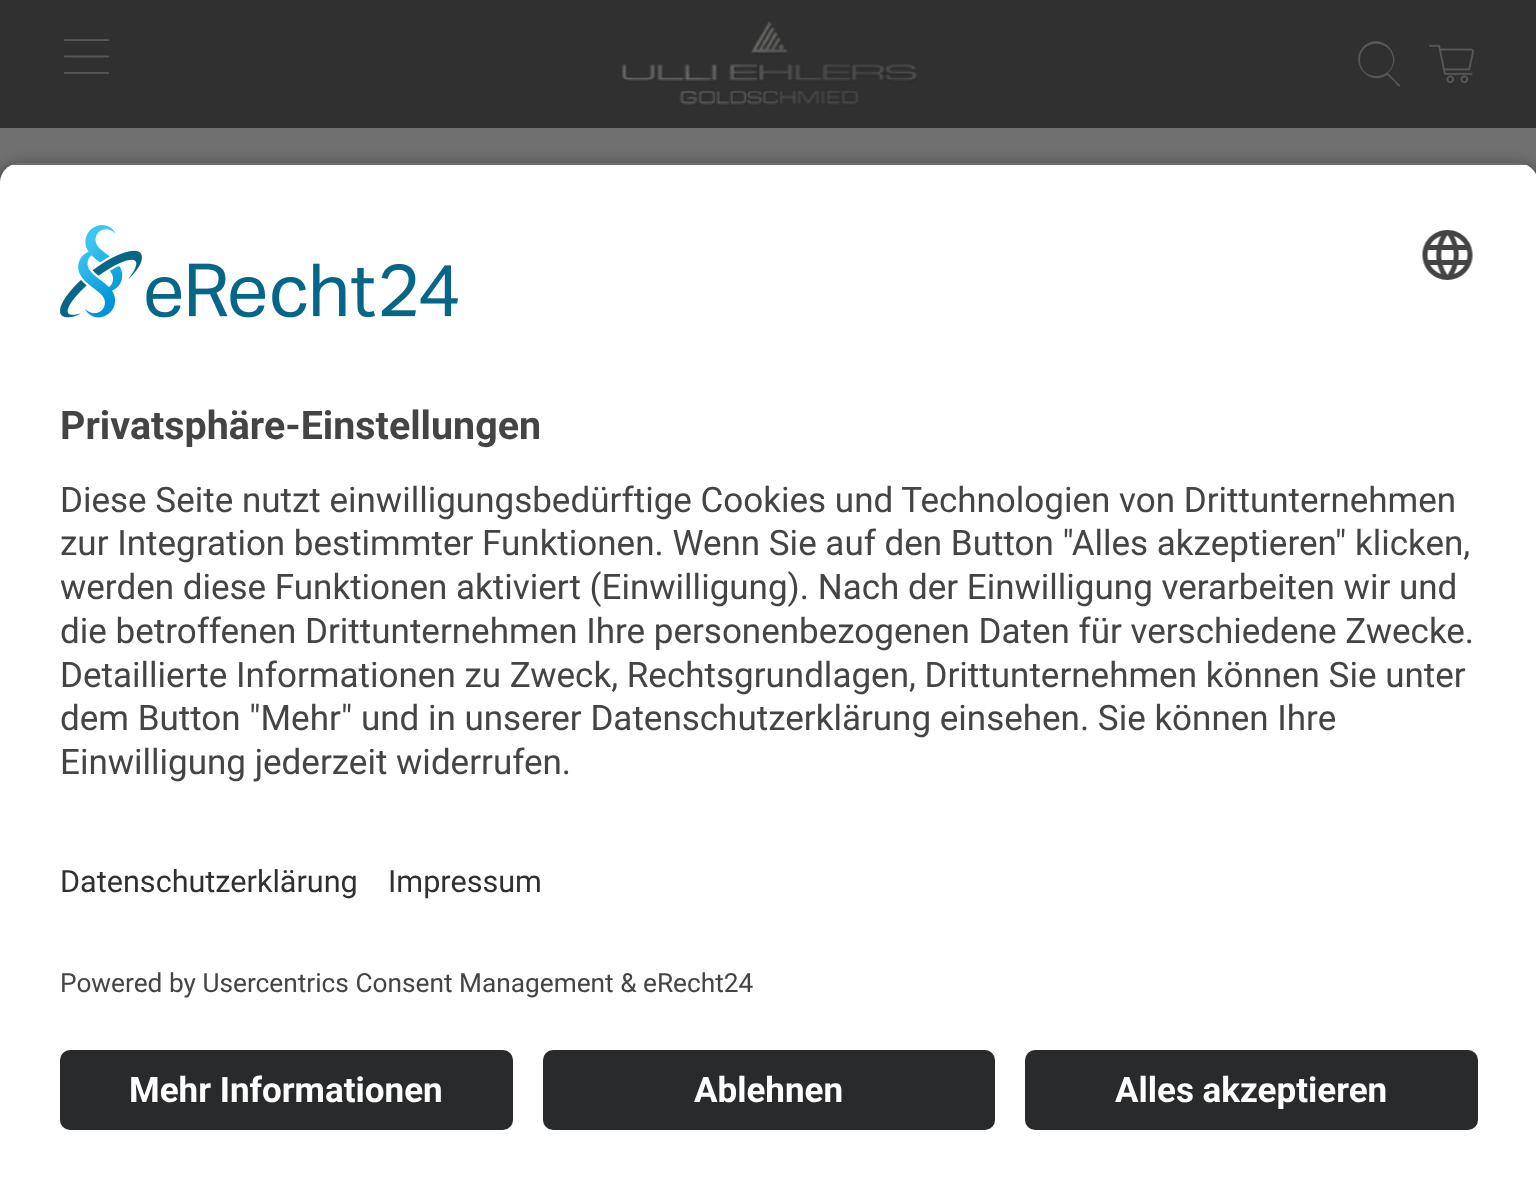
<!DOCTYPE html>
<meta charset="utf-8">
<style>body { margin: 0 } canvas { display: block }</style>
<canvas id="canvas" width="1536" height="1188"></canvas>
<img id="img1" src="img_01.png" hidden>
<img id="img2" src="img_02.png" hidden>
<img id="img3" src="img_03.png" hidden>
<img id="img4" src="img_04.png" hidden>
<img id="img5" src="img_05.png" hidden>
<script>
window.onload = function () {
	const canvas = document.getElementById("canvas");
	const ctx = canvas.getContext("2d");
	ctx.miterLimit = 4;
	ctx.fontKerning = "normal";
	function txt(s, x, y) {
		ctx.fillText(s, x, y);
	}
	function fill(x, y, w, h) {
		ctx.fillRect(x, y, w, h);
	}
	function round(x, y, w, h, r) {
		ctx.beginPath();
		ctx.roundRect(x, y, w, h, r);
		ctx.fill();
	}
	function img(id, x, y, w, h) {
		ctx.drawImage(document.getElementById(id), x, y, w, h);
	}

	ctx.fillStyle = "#707070";
	fill(0, 0, 1536, 1188);
	ctx.fillStyle = "#303030";
	fill(0, 0, 1536, 128);
	img("img1", 64, 39, 45, 35);
	img("img2", 621, 21, 297, 85);
	ctx.fillStyle = "#575757";
	ctx.beginPath();
	ctx.moveTo(1400, 85);
	ctx.lineTo(1388, 73);
	ctx.bezierCurveTo(1406, 58, 1383, 31, 1365, 45);
	ctx.bezierCurveTo(1347, 60, 1368, 88, 1387, 75);
	ctx.lineTo(1395, 82);
	ctx.bezierCurveTo(1395, 83, 1399, 88, 1400, 86);
	ctx.closePath();
	ctx.moveTo(1360, 60);
	ctx.bezierCurveTo(1360, 39, 1391, 38, 1393, 59);
	ctx.bezierCurveTo(1394, 81, 1360, 82, 1360, 60);
	ctx.closePath();
	ctx.fill();
	img("img3", 1429, 44, 45, 40);
	ctx.save();
	ctx.beginPath();
	ctx.moveTo(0, 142);
	ctx.lineTo(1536, 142);
	ctx.lineTo(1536, 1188);
	ctx.lineTo(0, 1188);
	ctx.closePath();
	ctx.moveTo(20, 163);
	ctx.lineTo(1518, 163);
	ctx.bezierCurveTo(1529, 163, 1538, 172, 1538, 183);
	ctx.lineTo(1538, 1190);
	ctx.lineTo(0, 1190);
	ctx.lineTo(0, 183);
	ctx.bezierCurveTo(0, 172, 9, 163, 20, 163);
	ctx.closePath();
	ctx.clip("evenodd");
	ctx.fillStyle = "rgba(0, 0, 0, 0.8)";
	ctx.filter = "blur(9px)";
	ctx.beginPath();
	ctx.roundRect(0, 170, 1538, 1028, 20);
	ctx.fill();
	ctx.filter = "none";
	ctx.restore();
	ctx.save();
	ctx.beginPath();
	ctx.moveTo(20, 163);
	ctx.lineTo(1518, 163);
	ctx.bezierCurveTo(1529, 163, 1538, 172, 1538, 183);
	ctx.lineTo(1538, 795);
	ctx.lineTo(0, 795);
	ctx.lineTo(0, 183);
	ctx.bezierCurveTo(0, 172, 9, 163, 20, 163);
	ctx.closePath();
	ctx.clip();
	ctx.fillStyle = "#FFFFFF";
	fill(0, 165, 1536, 630);
	ctx.restore();
	img("img4", 60, 225, 398, 93);
	img("img5", 1422, 230, 51, 50);
	ctx.fillStyle = "#FFFFFF";
	fill(0, 795, 1536, 393);
	ctx.fillStyle = "#292A2B";
	round(60, 1050, 453, 80, 10);
	round(543, 1050, 452, 80, 10);
	round(1025, 1050, 453, 80, 10);
	ctx.font = "bold 39.4px Roboto";
	ctx.fillStyle = "#444444";
	txt("Privatsphäre-Einstellungen", 60, 439);
	ctx.font = "35px Roboto";
	txt("Diese Seite nutzt einwilligungsbedürftige Cookies und Technologien von Drittunternehmen", 60, 512);
	txt("zur Integration bestimmter Funktionen. Wenn Sie auf den Button \"Alles akzeptieren\" klicken,", 60, 555);
	txt("werden diese Funktionen aktiviert (Einwilligung). Nach der Einwilligung verarbeiten wir und", 60, 599);
	txt("die betroffenen Drittunternehmen Ihre personenbezogenen Daten für verschiedene Zwecke.", 60, 643);
	txt("Detaillierte Informationen zu Zweck, Rechtsgrundlagen, Drittunternehmen können Sie unter", 60, 687);
	txt("dem Button \"Mehr\" und in unserer Datenschutzerklärung einsehen. Sie können Ihre", 60, 730);
	txt("Einwilligung jederzeit widerrufen.", 60, 774);
	ctx.font = "30.6px Roboto";
	ctx.fillStyle = "#303030";
	txt("Datenschutzerklärung", 60, 892);
	txt("Impressum", 388, 892);
	ctx.font = "26.25px Roboto";
	ctx.fillStyle = "#444444";
	txt("Powered by Usercentrics Consent Management & eRecht24", 60, 992);
	ctx.font = "bold 35px Roboto";
	ctx.fillStyle = "#FFFFFF";
	txt("Mehr Informationen", 129, 1102);
	txt("Ablehnen", 694, 1102);
	txt("Alles akzeptieren", 1115, 1102);
};
</script>
